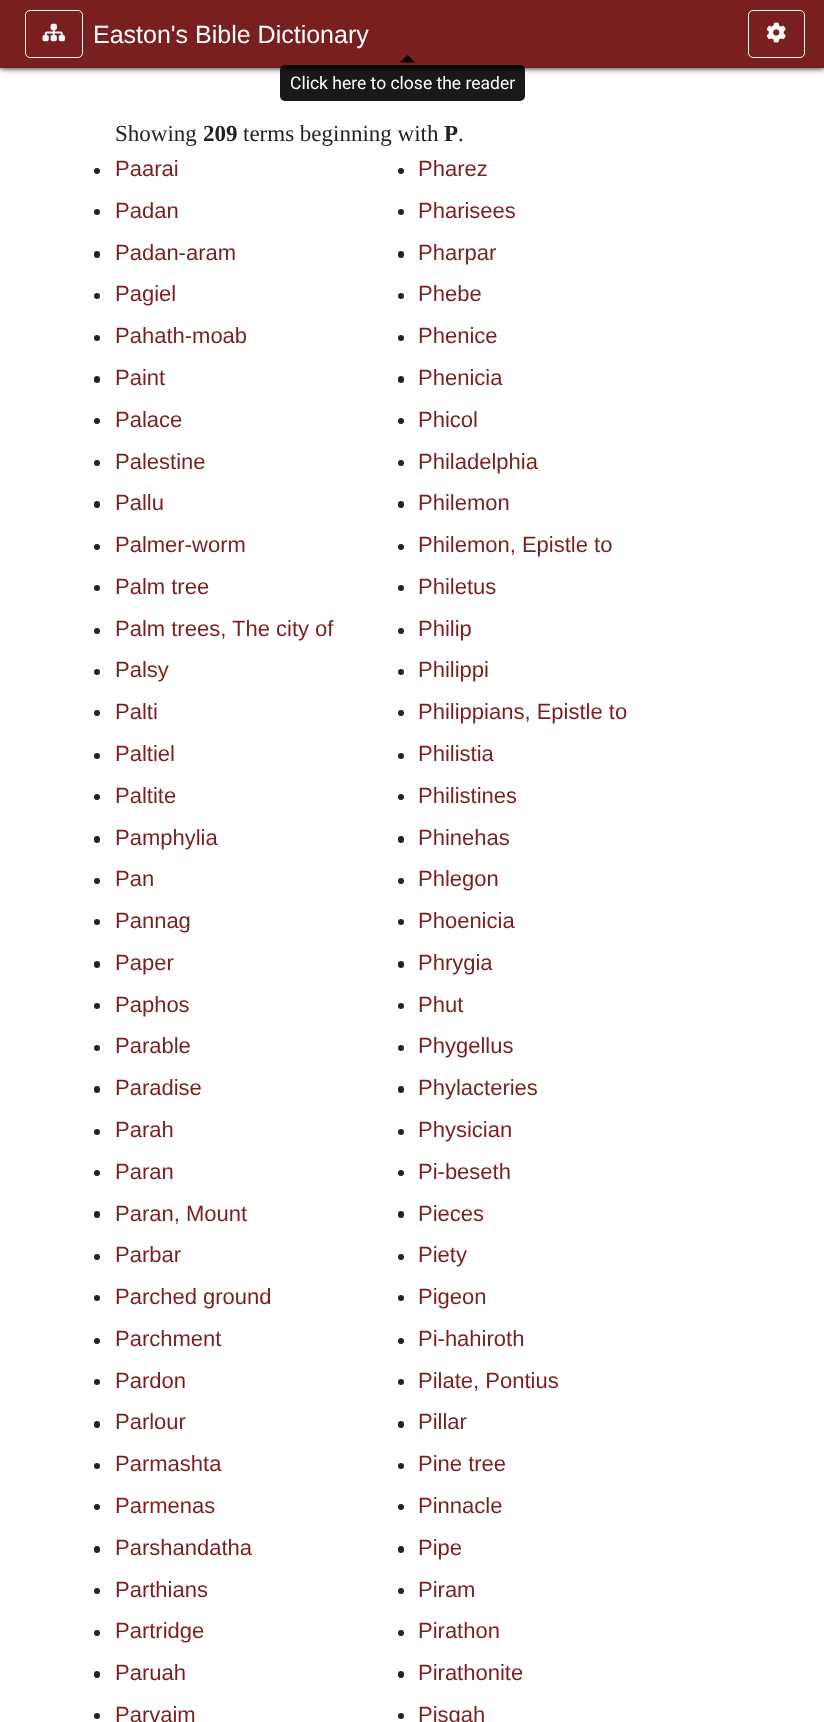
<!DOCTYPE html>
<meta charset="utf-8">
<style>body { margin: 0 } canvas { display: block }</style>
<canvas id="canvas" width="824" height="1722"></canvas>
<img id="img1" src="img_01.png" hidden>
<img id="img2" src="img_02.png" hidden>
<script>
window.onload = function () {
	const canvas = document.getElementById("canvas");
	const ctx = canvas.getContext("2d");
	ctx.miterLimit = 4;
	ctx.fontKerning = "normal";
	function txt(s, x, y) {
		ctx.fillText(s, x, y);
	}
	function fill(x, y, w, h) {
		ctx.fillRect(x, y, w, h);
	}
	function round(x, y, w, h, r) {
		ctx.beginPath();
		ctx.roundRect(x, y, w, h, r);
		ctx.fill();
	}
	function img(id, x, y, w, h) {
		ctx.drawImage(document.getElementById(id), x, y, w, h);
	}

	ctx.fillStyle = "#FFFFFF";
	fill(0, 0, 824, 1722);
	ctx.fillStyle = "#000000";
	ctx.filter = "blur(3px)";
	ctx.beginPath();
	ctx.rect(0, 0, 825, 68);
	ctx.fill();
	ctx.filter = "none";
	ctx.fillStyle = "#7A1F1F";
	fill(0, 0, 824, 68);
	ctx.beginPath();
	ctx.roundRect(25.5, 10.5, 57, 47, 4.5);
	ctx.strokeStyle = "#F8F9FA";
	ctx.stroke();
	img("img1", 42, 23, 23, 19);
	ctx.beginPath();
	ctx.roundRect(748.5, 10.5, 56, 47, 4.5);
	ctx.stroke();
	img("img2", 766, 22, 20, 21);
	ctx.fillStyle = "#222222";
	ctx.beginPath();
	ctx.arc(97, 171, 3, 0, Math.PI * 2);
	ctx.fill();
	ctx.beginPath();
	ctx.arc(97, 212, 3, 0, Math.PI * 2);
	ctx.fill();
	round(94, 251, 6, 7, 3);
	ctx.beginPath();
	ctx.arc(97, 296, 3, 0, Math.PI * 2);
	ctx.fill();
	ctx.beginPath();
	ctx.arc(97, 338, 3, 0, Math.PI * 2);
	ctx.fill();
	round(94, 376, 6, 7, 3);
	ctx.beginPath();
	ctx.arc(97, 421, 3, 0, Math.PI * 2);
	ctx.fill();
	ctx.beginPath();
	ctx.arc(97, 463, 3, 0, Math.PI * 2);
	ctx.fill();
	round(94, 501, 6, 7, 3);
	ctx.beginPath();
	ctx.arc(97, 547, 3, 0, Math.PI * 2);
	ctx.fill();
	ctx.beginPath();
	ctx.arc(97, 588, 3, 0, Math.PI * 2);
	ctx.fill();
	ctx.beginPath();
	ctx.arc(97, 631, 3, 0, Math.PI * 2);
	ctx.fill();
	ctx.beginPath();
	ctx.arc(97, 672, 3, 0, Math.PI * 2);
	ctx.fill();
	ctx.beginPath();
	ctx.arc(97, 713, 3, 0, Math.PI * 2);
	ctx.fill();
	ctx.beginPath();
	ctx.arc(97, 756, 3, 0, Math.PI * 2);
	ctx.fill();
	ctx.beginPath();
	ctx.arc(97, 797, 3, 0, Math.PI * 2);
	ctx.fill();
	round(94, 836, 6, 7, 3);
	ctx.beginPath();
	ctx.arc(97, 881, 3, 0, Math.PI * 2);
	ctx.fill();
	ctx.beginPath();
	ctx.arc(97, 922, 3, 0, Math.PI * 2);
	ctx.fill();
	round(94, 961, 6, 7, 3);
	ctx.beginPath();
	ctx.arc(97, 1006, 3, 0, Math.PI * 2);
	ctx.fill();
	ctx.beginPath();
	ctx.arc(97, 1048, 3, 0, Math.PI * 2);
	ctx.fill();
	round(94, 1086, 6, 7, 3);
	ctx.beginPath();
	ctx.arc(97, 1132, 3, 0, Math.PI * 2);
	ctx.fill();
	ctx.beginPath();
	ctx.arc(97, 1173, 3, 0, Math.PI * 2);
	ctx.fill();
	round(94, 1211, 6, 7, 3);
	ctx.beginPath();
	ctx.arc(97, 1257, 3, 0, Math.PI * 2);
	ctx.fill();
	ctx.beginPath();
	ctx.arc(97, 1298, 3, 0, Math.PI * 2);
	ctx.fill();
	ctx.beginPath();
	ctx.arc(97, 1341, 3, 0, Math.PI * 2);
	ctx.fill();
	ctx.beginPath();
	ctx.arc(97, 1382, 3, 0, Math.PI * 2);
	ctx.fill();
	round(94, 1421, 6, 7, 3);
	ctx.beginPath();
	ctx.arc(97, 1466, 3, 0, Math.PI * 2);
	ctx.fill();
	ctx.beginPath();
	ctx.arc(97, 1507, 3, 0, Math.PI * 2);
	ctx.fill();
	round(94, 1546, 6, 7, 3);
	ctx.beginPath();
	ctx.arc(97, 1591, 3, 0, Math.PI * 2);
	ctx.fill();
	ctx.beginPath();
	ctx.arc(97, 1633, 3, 0, Math.PI * 2);
	ctx.fill();
	round(94, 1671, 6, 7, 3);
	ctx.beginPath();
	ctx.arc(97, 1716, 3, 0, Math.PI * 2);
	ctx.fill();
	ctx.beginPath();
	ctx.arc(401, 171, 3, 0, Math.PI * 2);
	ctx.fill();
	ctx.beginPath();
	ctx.arc(401, 212, 3, 0, Math.PI * 2);
	ctx.fill();
	round(398, 251, 6, 7, 3);
	ctx.beginPath();
	ctx.arc(401, 296, 3, 0, Math.PI * 2);
	ctx.fill();
	ctx.beginPath();
	ctx.arc(401, 338, 3, 0, Math.PI * 2);
	ctx.fill();
	round(398, 376, 6, 7, 3);
	ctx.beginPath();
	ctx.arc(401, 421, 3, 0, Math.PI * 2);
	ctx.fill();
	ctx.beginPath();
	ctx.arc(401, 463, 3, 0, Math.PI * 2);
	ctx.fill();
	round(398, 501, 6, 7, 3);
	ctx.beginPath();
	ctx.arc(401, 547, 3, 0, Math.PI * 2);
	ctx.fill();
	ctx.beginPath();
	ctx.arc(401, 588, 3, 0, Math.PI * 2);
	ctx.fill();
	ctx.beginPath();
	ctx.arc(401, 631, 3, 0, Math.PI * 2);
	ctx.fill();
	ctx.beginPath();
	ctx.arc(401, 672, 3, 0, Math.PI * 2);
	ctx.fill();
	ctx.beginPath();
	ctx.arc(401, 713, 3, 0, Math.PI * 2);
	ctx.fill();
	ctx.beginPath();
	ctx.arc(401, 756, 3, 0, Math.PI * 2);
	ctx.fill();
	ctx.beginPath();
	ctx.arc(401, 797, 3, 0, Math.PI * 2);
	ctx.fill();
	round(398, 836, 6, 7, 3);
	ctx.beginPath();
	ctx.arc(401, 881, 3, 0, Math.PI * 2);
	ctx.fill();
	ctx.beginPath();
	ctx.arc(401, 922, 3, 0, Math.PI * 2);
	ctx.fill();
	round(398, 961, 6, 7, 3);
	ctx.beginPath();
	ctx.arc(401, 1006, 3, 0, Math.PI * 2);
	ctx.fill();
	ctx.beginPath();
	ctx.arc(401, 1048, 3, 0, Math.PI * 2);
	ctx.fill();
	round(398, 1086, 6, 7, 3);
	ctx.beginPath();
	ctx.arc(401, 1132, 3, 0, Math.PI * 2);
	ctx.fill();
	ctx.beginPath();
	ctx.arc(401, 1173, 3, 0, Math.PI * 2);
	ctx.fill();
	round(398, 1211, 6, 7, 3);
	ctx.beginPath();
	ctx.arc(401, 1257, 3, 0, Math.PI * 2);
	ctx.fill();
	ctx.beginPath();
	ctx.arc(401, 1298, 3, 0, Math.PI * 2);
	ctx.fill();
	ctx.beginPath();
	ctx.arc(401, 1341, 3, 0, Math.PI * 2);
	ctx.fill();
	ctx.beginPath();
	ctx.arc(401, 1382, 3, 0, Math.PI * 2);
	ctx.fill();
	round(398, 1421, 6, 7, 3);
	ctx.beginPath();
	ctx.arc(401, 1466, 3, 0, Math.PI * 2);
	ctx.fill();
	ctx.beginPath();
	ctx.arc(401, 1507, 3, 0, Math.PI * 2);
	ctx.fill();
	round(398, 1546, 6, 7, 3);
	ctx.beginPath();
	ctx.arc(401, 1591, 3, 0, Math.PI * 2);
	ctx.fill();
	ctx.beginPath();
	ctx.arc(401, 1633, 3, 0, Math.PI * 2);
	ctx.fill();
	round(398, 1671, 6, 7, 3);
	ctx.beginPath();
	ctx.arc(401, 1716, 3, 0, Math.PI * 2);
	ctx.fill();
	ctx.fillStyle = "#0C0303";
	ctx.beginPath();
	ctx.moveTo(415, 62.5);
	ctx.lineTo(400, 62.5);
	ctx.lineTo(407.5, 55);
	ctx.closePath();
	ctx.fill();
	ctx.fillStyle = "rgba(0, 0, 0, 0.9)";
	round(280, 65, 245, 36, 5);
	ctx.font = "25px Liberation Sans";
	ctx.fillStyle = "#FFFFFF";
	txt("Easton's Bible Dictionary", 93, 43);
	ctx.font = "23px Liberation Serif";
	ctx.fillStyle = "#222222";
	txt("Showing", 115, 141);
	ctx.font = "bold 23px Liberation Serif";
	txt("209", 203, 141);
	ctx.font = "23px Liberation Serif";
	txt("terms beginning with", 243, 141);
	ctx.font = "bold 23px Liberation Serif";
	txt("P", 444, 141);
	ctx.font = "23px Liberation Serif";
	txt(".", 458, 141);
	ctx.font = "22px Liberation Sans";
	ctx.fillStyle = "#7A1F1F";
	txt("Paarai", 115, 176);
	txt("Padan", 115, 218);
	txt("Padan-aram", 115, 260);
	txt("Pagiel", 115, 301);
	txt("Pahath-moab", 115, 343);
	txt("Paint", 115, 385);
	txt("Palace", 115, 427);
	txt("Palestine", 115, 469);
	txt("Pallu", 115, 510);
	txt("Palmer-worm", 115, 552);
	txt("Palm tree", 115, 594);
	txt("Palm trees, The city of", 115, 636);
	txt("Palsy", 115, 677);
	txt("Palti", 115, 719);
	txt("Paltiel", 115, 761);
	txt("Paltite", 115, 803);
	txt("Pamphylia", 115, 845);
	txt("Pan", 115, 886);
	txt("Pannag", 115, 928);
	txt("Paper", 115, 970);
	txt("Paphos", 115, 1012);
	txt("Parable", 115, 1053);
	txt("Paradise", 115, 1095);
	txt("Parah", 115, 1137);
	txt("Paran", 115, 1179);
	txt("Paran, Mount", 115, 1221);
	txt("Parbar", 115, 1262);
	txt("Parched ground", 115, 1304);
	txt("Parchment", 115, 1346);
	txt("Pardon", 115, 1388);
	txt("Parlour", 115, 1429);
	txt("Parmashta", 115, 1471);
	txt("Parmenas", 115, 1513);
	txt("Parshandatha", 115, 1555);
	txt("Parthians", 115, 1597);
	txt("Partridge", 115, 1638);
	txt("Paruah", 115, 1680);
	txt("Parvaim", 115, 1722);
	txt("Pharez", 418, 176);
	txt("Pharisees", 418, 218);
	txt("Pharpar", 418, 260);
	txt("Phebe", 418, 301);
	txt("Phenice", 418, 343);
	txt("Phenicia", 418, 385);
	txt("Phicol", 418, 427);
	txt("Philadelphia", 418, 469);
	txt("Philemon", 418, 510);
	txt("Philemon, Epistle to", 418, 552);
	txt("Philetus", 418, 594);
	txt("Philip", 418, 636);
	txt("Philippi", 418, 677);
	txt("Philippians, Epistle to", 418, 719);
	txt("Philistia", 418, 761);
	txt("Philistines", 418, 803);
	txt("Phinehas", 418, 845);
	txt("Phlegon", 418, 886);
	txt("Phoenicia", 418, 928);
	txt("Phrygia", 418, 970);
	txt("Phut", 418, 1012);
	txt("Phygellus", 418, 1053);
	txt("Phylacteries", 418, 1095);
	txt("Physician", 418, 1137);
	txt("Pi-beseth", 418, 1179);
	txt("Pieces", 418, 1221);
	txt("Piety", 418, 1262);
	txt("Pigeon", 418, 1304);
	txt("Pi-hahiroth", 418, 1346);
	txt("Pilate, Pontius", 418, 1388);
	txt("Pillar", 418, 1429);
	txt("Pine tree", 418, 1471);
	txt("Pinnacle", 418, 1513);
	txt("Pipe", 418, 1555);
	txt("Piram", 418, 1597);
	txt("Pirathon", 418, 1638);
	txt("Pirathonite", 418, 1680);
	txt("Pisgah", 418, 1722);
	ctx.font = "17.5px Roboto";
	ctx.fillStyle = "#FFFFFF";
	txt("Click here to close the reader", 290, 89);
};
</script>
